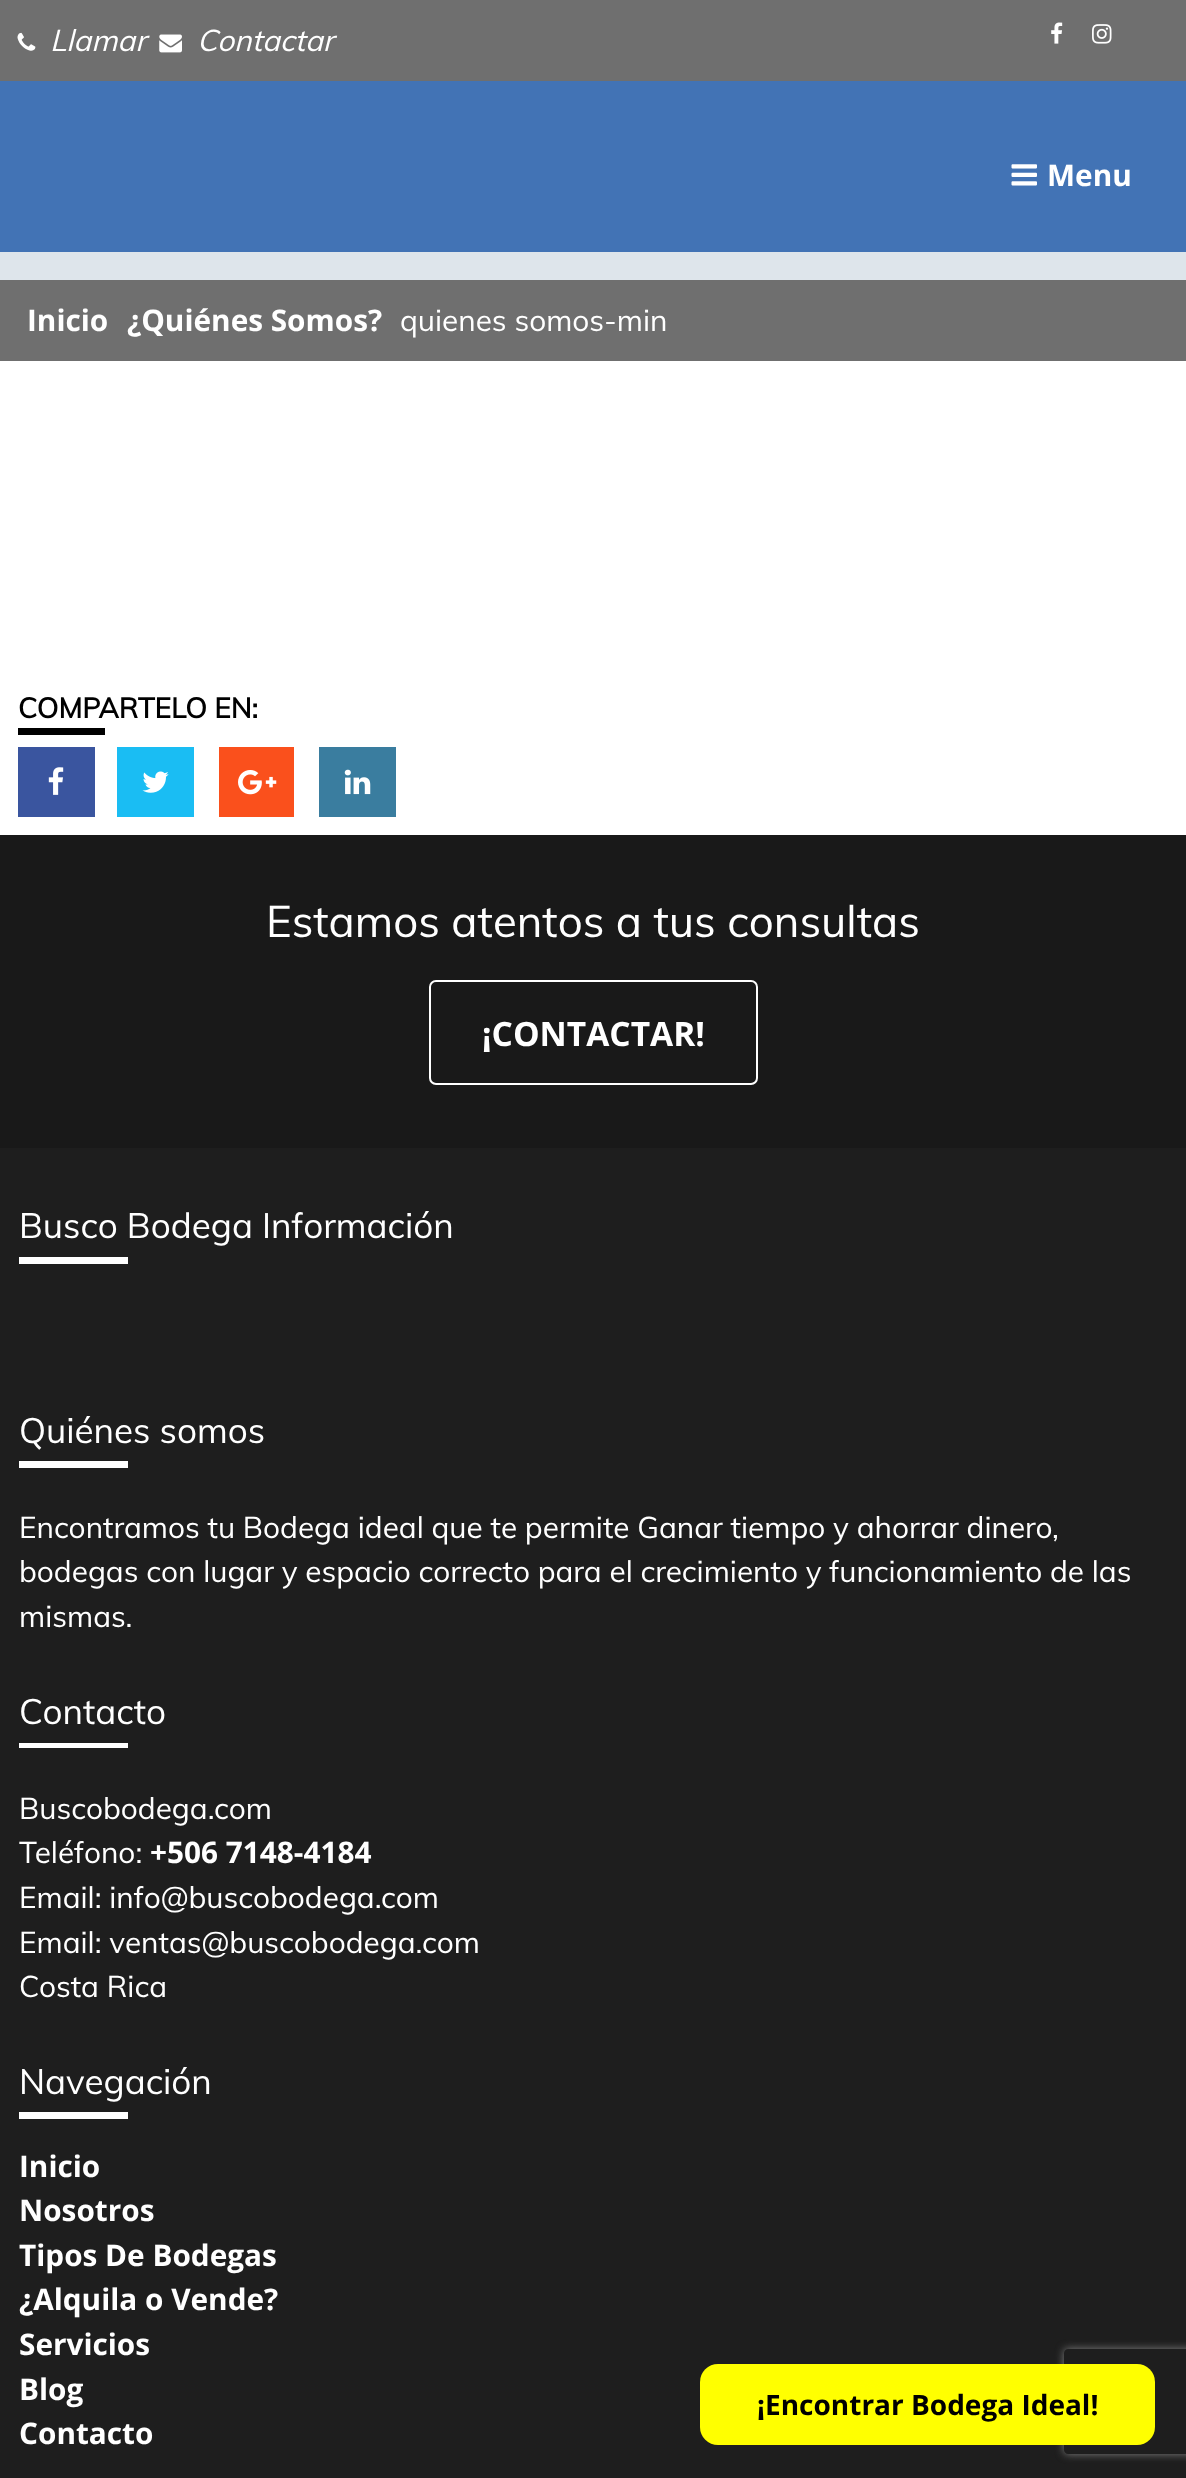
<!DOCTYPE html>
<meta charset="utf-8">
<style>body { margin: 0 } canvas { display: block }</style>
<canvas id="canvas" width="1186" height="2478"></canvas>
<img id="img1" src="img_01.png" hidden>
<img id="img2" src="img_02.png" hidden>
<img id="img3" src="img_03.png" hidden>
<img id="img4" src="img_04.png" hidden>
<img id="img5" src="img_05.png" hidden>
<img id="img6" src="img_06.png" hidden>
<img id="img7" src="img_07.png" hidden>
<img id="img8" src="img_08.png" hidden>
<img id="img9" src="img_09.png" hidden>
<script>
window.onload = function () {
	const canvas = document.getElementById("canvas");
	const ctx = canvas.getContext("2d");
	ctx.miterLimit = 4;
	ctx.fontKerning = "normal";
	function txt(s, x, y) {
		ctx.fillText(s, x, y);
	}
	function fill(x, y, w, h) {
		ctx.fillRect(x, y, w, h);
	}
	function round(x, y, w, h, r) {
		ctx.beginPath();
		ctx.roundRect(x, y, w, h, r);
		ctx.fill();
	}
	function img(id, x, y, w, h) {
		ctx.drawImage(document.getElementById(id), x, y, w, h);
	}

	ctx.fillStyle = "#DEE5EB";
	fill(0, 0, 1186, 2478);
	ctx.fillStyle = "#6F6F6F";
	fill(0, 0, 1186, 81);
	img("img1", 17, 32, 19, 19);
	img("img2", 159, 34, 23, 19);
	img("img3", 1051, 22, 12, 22);
	img("img4", 1092, 24, 20, 20);
	ctx.fillStyle = "#4273B5";
	fill(0, 81, 1186, 171);
	img("img5", 1011, 164, 26, 22);
	ctx.fillStyle = "#6F6F6F";
	fill(0, 280, 1186, 81);
	ctx.fillStyle = "#FFFFFF";
	fill(0, 361, 1186, 474);
	ctx.fillStyle = "#000000";
	fill(18, 728, 87, 7);
	ctx.fillStyle = "#3A559F";
	fill(18, 747, 77, 70);
	img("img6", 48, 767, 16, 28);
	ctx.fillStyle = "#1ABDF3";
	fill(117, 747, 77, 70);
	img("img7", 142, 771, 27, 22);
	ctx.fillStyle = "#FA501C";
	fill(219, 747, 75, 70);
	img("img8", 238, 770, 39, 25);
	ctx.fillStyle = "#3A7D9F";
	fill(319, 747, 77, 70);
	img("img9", 344, 769, 27, 26);
	ctx.fillStyle = "#191919";
	fill(0, 835, 1186, 313);
	ctx.beginPath();
	ctx.roundRect(430, 981, 327, 103, 6);
	ctx.strokeStyle = "#FFFFFF";
	ctx.lineWidth = 2;
	ctx.stroke();
	ctx.fillStyle = "#1E1E1E";
	fill(0, 1148, 1186, 1330);
	ctx.fillStyle = "#FFFFFF";
	fill(19, 1257, 109, 7);
	fill(19, 1461, 109, 7);
	fill(19, 1743, 109, 5);
	fill(19, 2112, 109, 7);
	ctx.save();
	ctx.beginPath();
	ctx.moveTo(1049, 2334);
	ctx.lineTo(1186, 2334);
	ctx.lineTo(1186, 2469);
	ctx.lineTo(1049, 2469);
	ctx.closePath();
	ctx.moveTo(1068, 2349);
	ctx.lineTo(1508, 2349);
	ctx.bezierCurveTo(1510, 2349, 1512, 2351, 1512, 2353);
	ctx.lineTo(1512, 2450);
	ctx.bezierCurveTo(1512, 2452, 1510, 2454, 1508, 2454);
	ctx.lineTo(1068, 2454);
	ctx.bezierCurveTo(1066, 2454, 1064, 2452, 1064, 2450);
	ctx.lineTo(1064, 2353);
	ctx.bezierCurveTo(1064, 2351, 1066, 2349, 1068, 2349);
	ctx.closePath();
	ctx.clip("evenodd");
	ctx.fillStyle = "#808080";
	ctx.filter = "blur(4.5px)";
	ctx.beginPath();
	ctx.roundRect(1064, 2349, 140, 105, 4);
	ctx.fill();
	ctx.filter = "none";
	ctx.restore();
	ctx.fillStyle = "#FFFF00";
	round(700, 2364, 455, 81, 18);
	ctx.font = "italic 29.75px Muli";
	ctx.fillStyle = "#FFFFFF";
	txt("Llamar", 50, 51);
	txt("Contactar", 197, 51);
	ctx.font = "bold 29.75px Open Sans";
	txt("Menu", 1047, 186);
	txt("Inicio", 27, 331);
	txt("¿Quiénes Somos?", 127, 331);
	ctx.font = "29.75px Muli";
	txt("quienes somos-min", 400, 331);
	ctx.font = "bold 28px Muli";
	ctx.fillStyle = "#000000";
	txt("COMPARTELO EN:", 18, 718);
	ctx.font = "43.75px Muli";
	ctx.fillStyle = "#FFFFFF";
	txt("Estamos atentos a tus consultas", 266, 937);
	ctx.font = "bold 33.5px Open Sans";
	txt("¡CONTACTAR!", 482, 1046);
	ctx.font = "35px Muli";
	txt("Busco Bodega Información", 19, 1238);
	txt("Quiénes somos", 19, 1443);
	ctx.font = "29.75px Muli";
	txt("Encontramos tu Bodega ideal que te permite Ganar tiempo y ahorrar dinero,", 19, 1538);
	txt("bodegas con lugar y espacio correcto para el crecimiento y funcionamiento de las", 19, 1582);
	txt("mismas.", 19, 1627);
	ctx.font = "35px Muli";
	txt("Contacto", 19, 1724);
	ctx.font = "29.75px Muli";
	txt("Buscobodega.com", 19, 1819);
	txt("Teléfono:", 19, 1863);
	ctx.font = "bold 29.75px Open Sans";
	txt("+506 7148-4184", 150, 1863);
	ctx.font = "29.75px Muli";
	txt("Email: info@buscobodega.com", 19, 1908);
	txt("Email: ventas@buscobodega.com", 19, 1953);
	txt("Costa Rica", 19, 1997);
	ctx.font = "35px Muli";
	txt("Navegación", 19, 2094);
	ctx.font = "bold 29.75px Open Sans";
	txt("Inicio", 19, 2177);
	txt("Nosotros", 19, 2221);
	txt("Tipos De Bodegas", 19, 2266);
	txt("¿Alquila o Vende?", 19, 2310);
	txt("Servicios", 19, 2355);
	txt("Blog", 19, 2400);
	txt("Contacto", 19, 2444);
	ctx.font = "bold 28px Open Sans";
	ctx.fillStyle = "#000000";
	txt("¡Encontrar Bodega Ideal!", 757, 2415);
};
</script>
